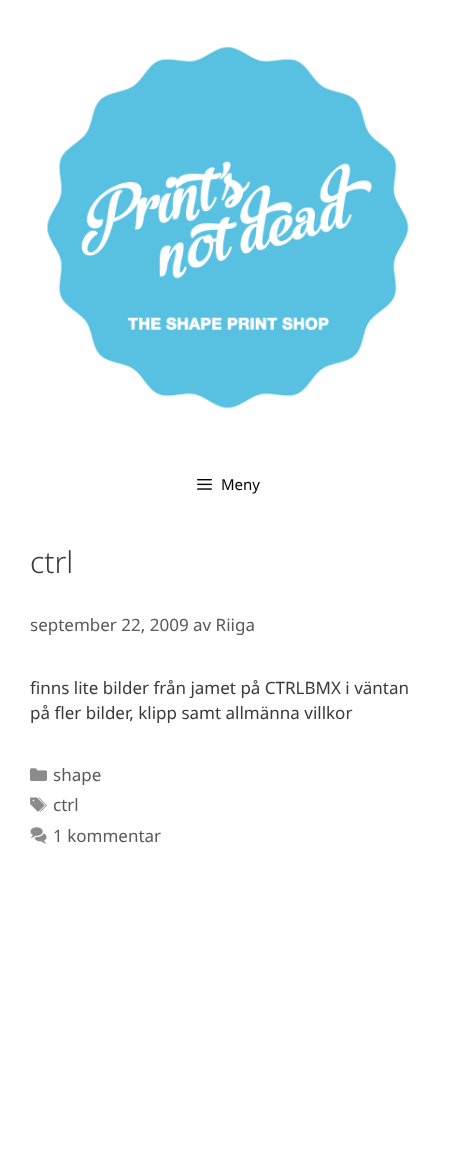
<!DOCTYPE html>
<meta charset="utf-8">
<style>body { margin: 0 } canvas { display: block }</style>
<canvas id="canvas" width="454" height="1171"></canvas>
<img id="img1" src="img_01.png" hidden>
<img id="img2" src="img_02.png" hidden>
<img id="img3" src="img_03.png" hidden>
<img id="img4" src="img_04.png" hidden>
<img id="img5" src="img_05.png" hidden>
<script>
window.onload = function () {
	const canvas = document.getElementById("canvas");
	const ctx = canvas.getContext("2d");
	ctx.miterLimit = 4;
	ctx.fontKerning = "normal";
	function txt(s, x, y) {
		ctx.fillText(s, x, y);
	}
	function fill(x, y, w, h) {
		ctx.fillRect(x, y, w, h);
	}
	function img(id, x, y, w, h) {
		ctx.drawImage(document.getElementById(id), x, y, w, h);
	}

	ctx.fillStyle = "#FFFFFF";
	fill(0, 0, 454, 1171);
	img("img1", 47, 46, 362, 363);
	img("img2", 197, 479, 15, 11);
	img("img3", 30, 768, 17, 13);
	img("img4", 30, 797, 17, 15);
	img("img5", 30, 827, 17, 17);
	ctx.font = "15px Noto Sans";
	ctx.fillStyle = "#000000";
	txt("Meny", 221, 490);
	ctx.font = "300 30px Noto Sans";
	ctx.fillStyle = "#3A3A3A";
	txt("ctrl", 30, 573);
	ctx.font = "17px Noto Sans";
	ctx.fillStyle = "#595959";
	txt("september 22, 2009 av Riiga", 30, 631);
	ctx.fillStyle = "#3A3A3A";
	txt("finns lite bilder från jamet på CTRLBMX i väntan", 30, 694);
	txt("på fler bilder, klipp samt allmänna villkor", 30, 719);
	ctx.fillStyle = "#595959";
	txt("shape", 53, 781);
	txt("ctrl", 53, 811);
	txt("1 kommentar", 53, 842);
};
</script>
